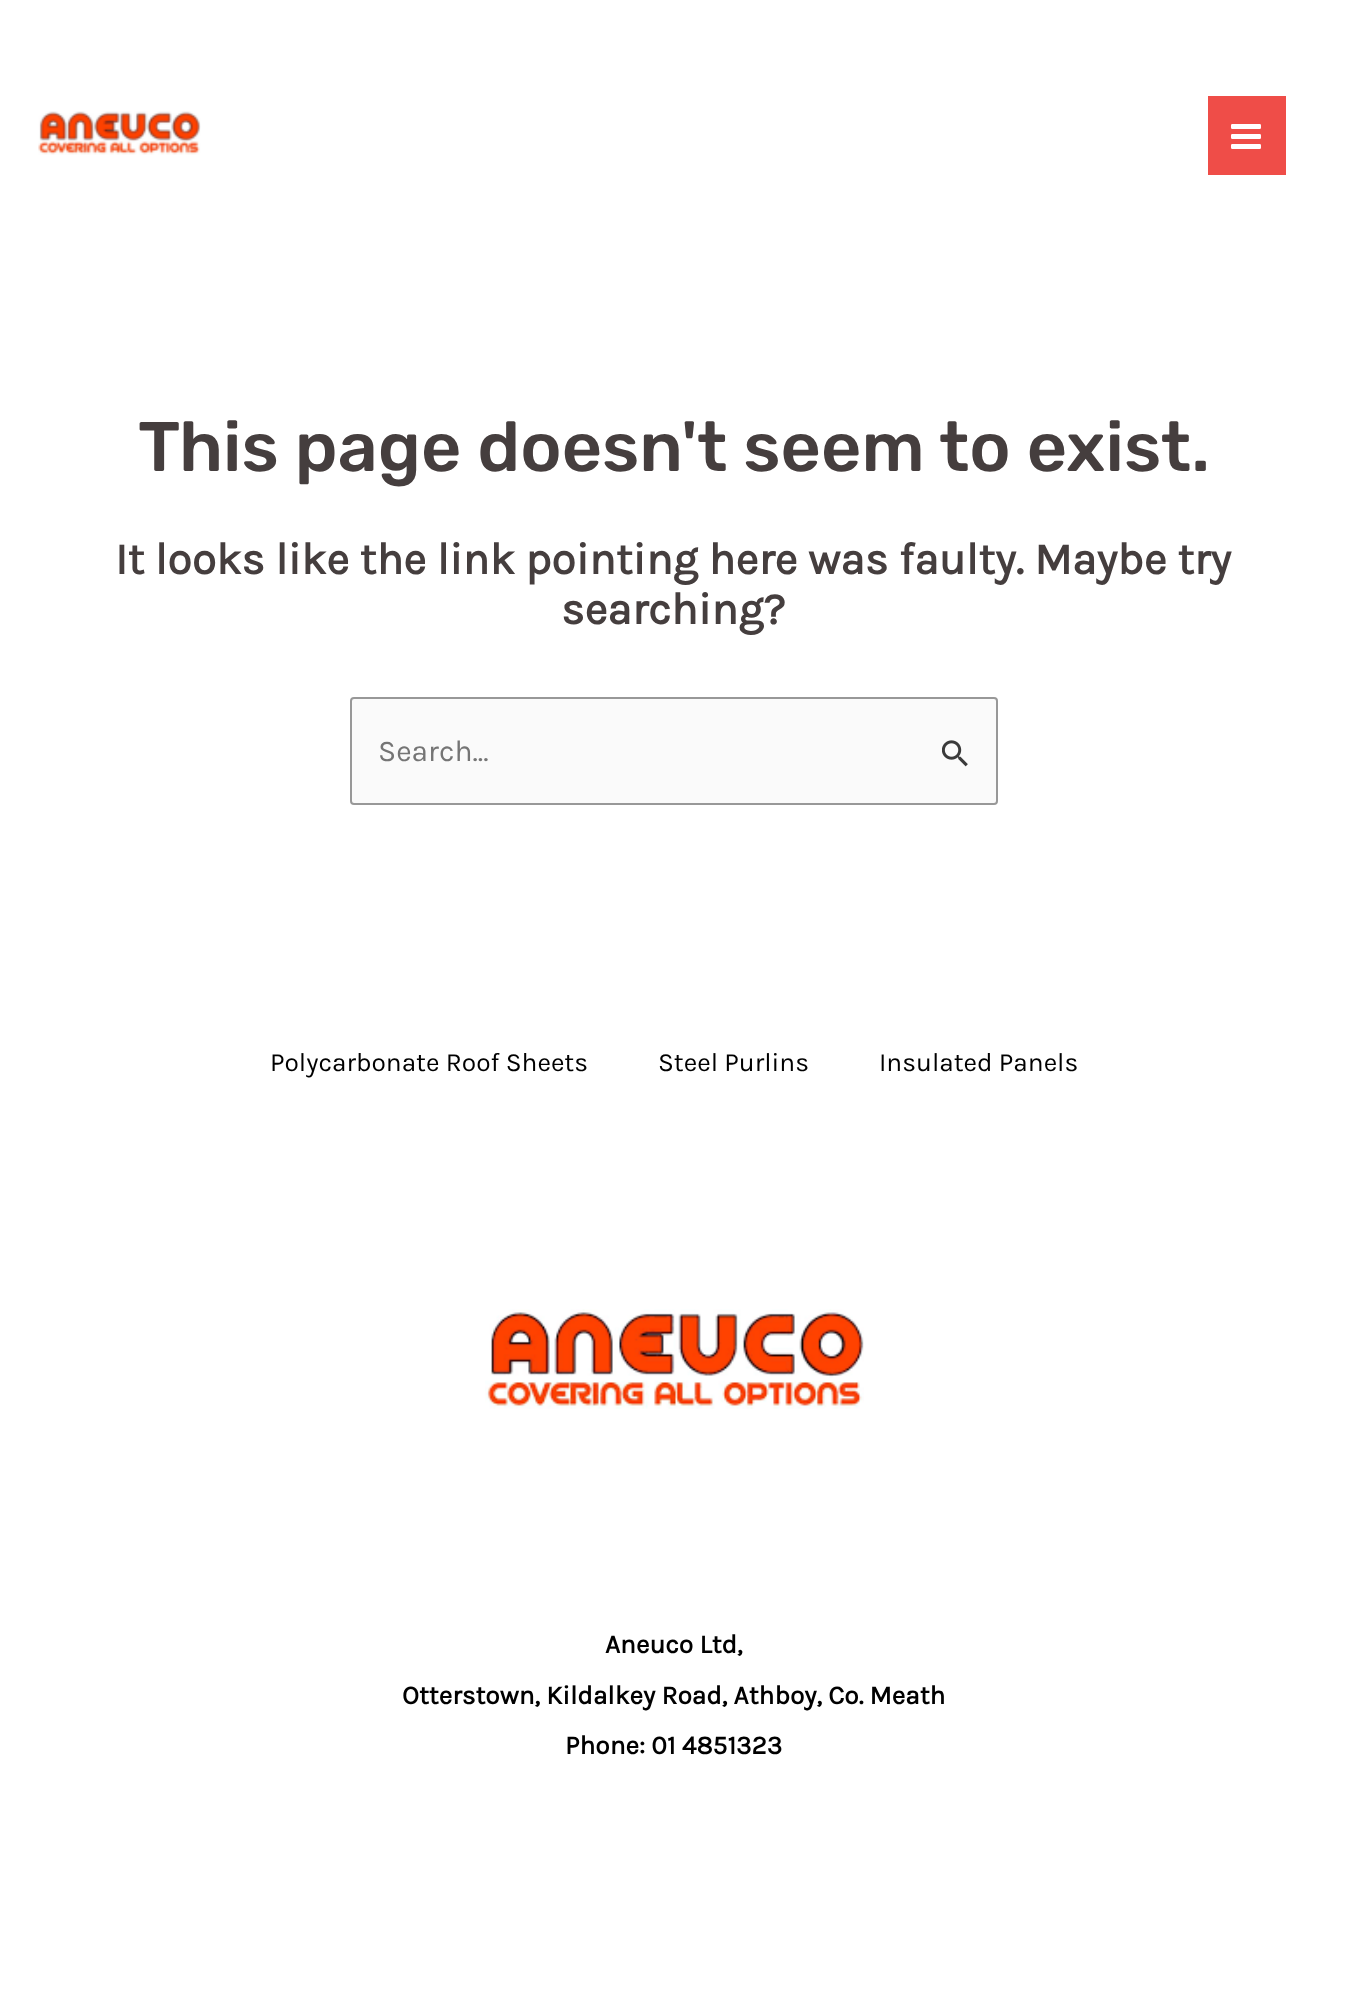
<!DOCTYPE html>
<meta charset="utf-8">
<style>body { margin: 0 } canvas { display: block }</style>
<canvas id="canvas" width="1346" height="2009"></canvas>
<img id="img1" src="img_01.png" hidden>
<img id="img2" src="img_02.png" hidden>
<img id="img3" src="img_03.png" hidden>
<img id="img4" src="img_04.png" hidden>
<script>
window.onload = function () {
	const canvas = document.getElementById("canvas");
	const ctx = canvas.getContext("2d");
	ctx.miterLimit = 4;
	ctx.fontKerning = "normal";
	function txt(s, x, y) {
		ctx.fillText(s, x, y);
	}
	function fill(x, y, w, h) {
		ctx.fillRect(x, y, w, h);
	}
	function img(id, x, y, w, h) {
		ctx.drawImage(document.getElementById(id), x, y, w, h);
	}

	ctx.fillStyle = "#FFFFFF";
	fill(0, 0, 1346, 2009);
	img("img1", 38, 111, 163, 44);
	ctx.fillStyle = "#EF4D48";
	fill(1208, 96, 78, 79);
	img("img2", 1231, 124, 30, 25);
	ctx.fillStyle = "#FAFAFA";
	ctx.beginPath();
	ctx.roundRect(351, 698, 646, 106, 3);
	ctx.fill();
	ctx.strokeStyle = "#989898";
	ctx.lineWidth = 2;
	ctx.stroke();
	img("img3", 942, 740, 26, 27);
	img("img4", 485, 1309, 379, 100);
	ctx.font = "500 70px Rubik";
	ctx.fillStyle = "#453E3E";
	txt("This page doesn't seem to exist.", 138, 471);
	ctx.font = "bold 44.6px Karla";
	txt("It looks like the link pointing here was faulty. Maybe try", 115, 574);
	txt("searching?", 561, 624);
	ctx.font = "30px Karla";
	ctx.fillStyle = "#757575";
	txt("Search...", 378, 761);
	ctx.font = "26.25px Karla";
	ctx.fillStyle = "#000000";
	txt("Polycarbonate Roof Sheets", 270, 1071);
	txt("Steel Purlins", 658, 1071);
	txt("Insulated Panels", 879, 1071);
	ctx.font = "bold 26.25px Karla";
	txt("Aneuco Ltd,", 605, 1653);
	txt("Otterstown, Kildalkey Road, Athboy, Co. Meath", 402, 1704);
	txt("Phone: 01 4851323", 565, 1754);
};
</script>
